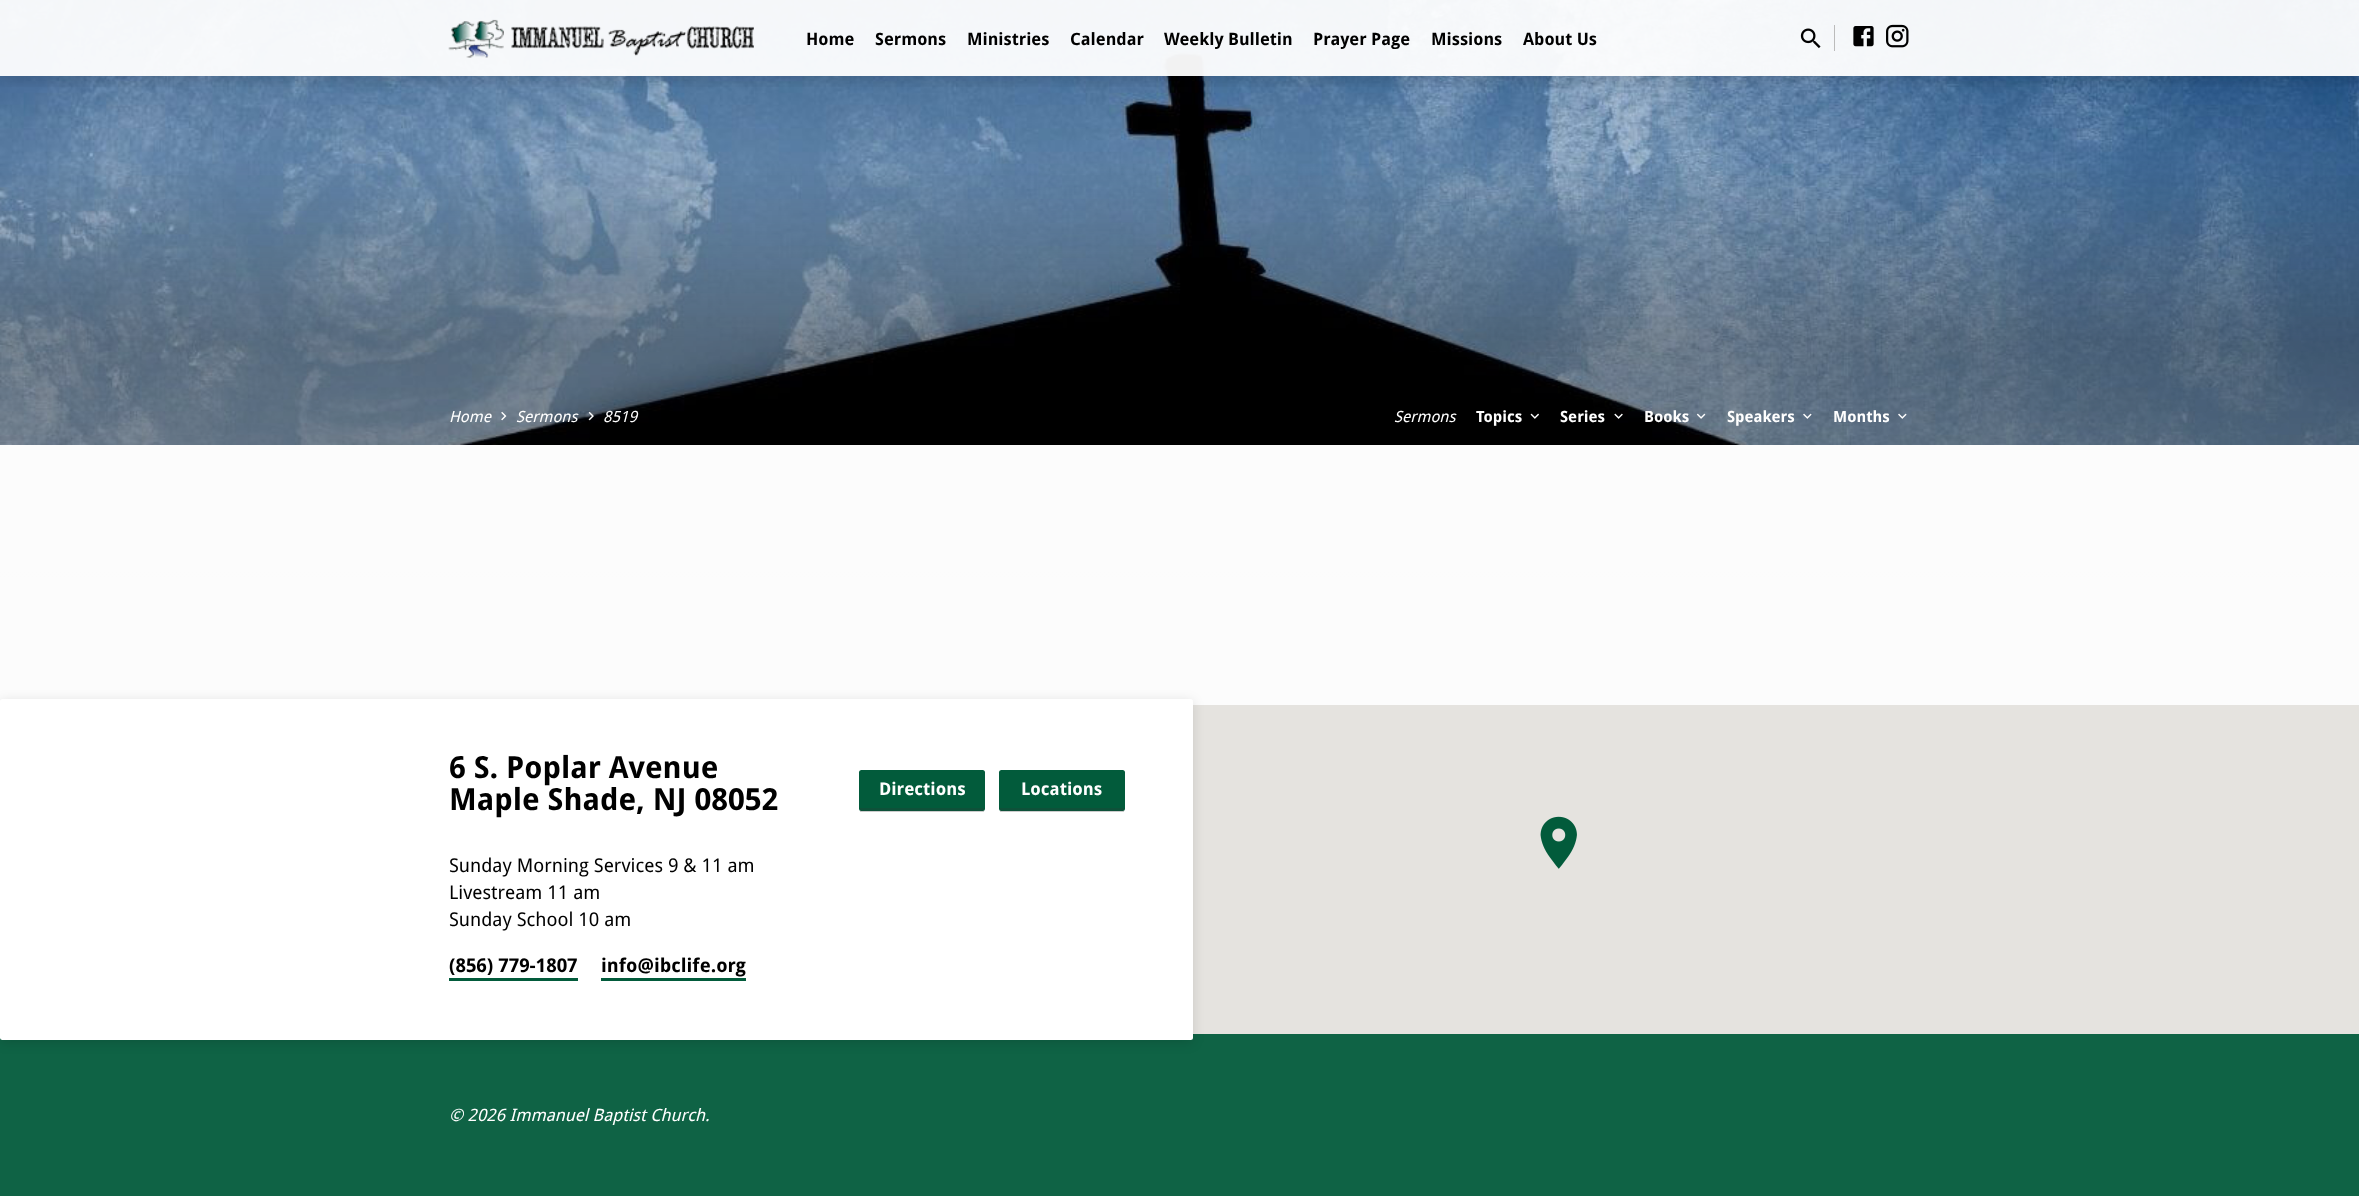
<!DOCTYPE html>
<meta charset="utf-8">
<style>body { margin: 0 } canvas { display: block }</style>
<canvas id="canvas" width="2359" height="1196"></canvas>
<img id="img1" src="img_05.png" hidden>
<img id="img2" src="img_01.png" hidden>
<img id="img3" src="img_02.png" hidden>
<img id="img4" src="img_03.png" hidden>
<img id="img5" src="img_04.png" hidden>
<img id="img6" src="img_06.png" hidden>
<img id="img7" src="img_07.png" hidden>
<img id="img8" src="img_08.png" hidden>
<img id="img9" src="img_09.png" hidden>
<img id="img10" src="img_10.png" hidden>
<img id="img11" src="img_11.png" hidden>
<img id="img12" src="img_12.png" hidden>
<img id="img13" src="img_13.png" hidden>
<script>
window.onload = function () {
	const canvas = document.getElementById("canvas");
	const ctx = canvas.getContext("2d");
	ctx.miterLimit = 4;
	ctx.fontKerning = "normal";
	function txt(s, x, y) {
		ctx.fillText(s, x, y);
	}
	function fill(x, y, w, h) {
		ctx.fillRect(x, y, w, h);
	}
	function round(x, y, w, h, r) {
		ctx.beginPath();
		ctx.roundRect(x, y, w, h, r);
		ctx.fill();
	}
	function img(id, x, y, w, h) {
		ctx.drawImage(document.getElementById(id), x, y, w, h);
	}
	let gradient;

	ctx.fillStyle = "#FFFFFF";
	fill(0, 0, 2359, 1196);
	img("img1", 0, 0, 2359, 445);
	ctx.fillStyle = "rgba(255, 255, 255, 0.95)";
	fill(0, 0, 2359, 76);
	ctx.save();
	ctx.beginPath();
	ctx.rect(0, 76, 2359, 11);
	ctx.clip();
	ctx.fillStyle = "rgba(0, 0, 0, 0.14)";
	ctx.filter = "blur(7.5px)";
	ctx.beginPath();
	ctx.rect(0, 3, 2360, 76);
	ctx.fill();
	ctx.filter = "none";
	ctx.restore();
	img("img2", 448, 19, 306, 39);
	img("img3", 1800, 28, 21, 21);
	ctx.fillStyle = "#BBBBBB";
	fill(1834, 25, 1, 26);
	img("img4", 1853, 26, 21, 21);
	img("img5", 1886, 24, 23, 24);
	img("img6", 501, 411, 6, 10);
	img("img7", 588, 411, 6, 10);
	img("img8", 1530, 413, 9, 6);
	img("img9", 1614, 413, 9, 6);
	img("img10", 1696, 413, 10, 6);
	img("img11", 1803, 413, 9, 6);
	img("img12", 1898, 413, 9, 6);
	gradient = ctx.createLinearGradient(1180, 705, 1180, 445);
	gradient.addColorStop(0.48, "#FCFCFC");
	gradient.addColorStop(0.96, "#F9F9F9");
	ctx.fillStyle = gradient;
	fill(0, 571, 2359, 134);
	gradient = ctx.createLinearGradient(1180, 445, 1180, 705);
	gradient.addColorStop(0.48, "#FCFCFC");
	gradient.addColorStop(0.96, "rgba(252, 252, 252, 0)");
	ctx.fillStyle = gradient;
	fill(0, 445, 2359, 126);
	ctx.fillStyle = "#E5E3DF";
	fill(1193, 705, 1166, 329);
	ctx.fillStyle = "#0F6345";
	fill(0, 1034, 2359, 162);
	ctx.fillStyle = "rgba(0, 0, 0, 0.12)";
	ctx.filter = "blur(6px)";
	ctx.beginPath();
	ctx.roundRect(0, 701, 1193, 342, 2.5);
	ctx.fill();
	ctx.filter = "none";
	ctx.fillStyle = "#FFFFFF";
	round(0, 699, 1193, 341, 2.5);
	img("img13", 1540, 816, 37, 53);
	ctx.fillStyle = "#025B3B";
	round(859, 770, 126, 41, 2.5);
	ctx.fillStyle = "rgba(50, 50, 50, 0.25)";
	fill(860, 808, 124, 4);
	ctx.fillStyle = "#025B3B";
	round(999, 770, 126, 41, 2.5);
	ctx.fillStyle = "rgba(50, 50, 50, 0.25)";
	fill(1000, 808, 124, 4);
	ctx.fillStyle = "#025B3B";
	fill(449, 978, 129, 3);
	fill(601, 978, 145, 3);
	ctx.font = "bold 17px Droid Sans";
	ctx.fillStyle = "#000000";
	txt("Home", 806, 45);
	txt("Sermons", 875, 45);
	txt("Ministries", 967, 45);
	txt("Calendar", 1070, 45);
	txt("Weekly Bulletin", 1164, 45);
	txt("Prayer Page", 1313, 45);
	txt("Missions", 1431, 45);
	txt("About Us", 1523, 45);
	ctx.font = "italic 15.5px Droid Sans";
	ctx.fillStyle = "#FFFFFF";
	txt("Home", 449, 422);
	txt("Sermons", 516, 422);
	txt("8519", 603, 422);
	txt("Sermons", 1394, 422);
	ctx.font = "bold 15.5px Droid Sans";
	txt("Topics", 1476, 422);
	txt("Series", 1560, 422);
	txt("Books", 1644, 422);
	txt("Speakers", 1727, 422);
	txt("Months", 1833, 422);
	ctx.font = "bold 30.4px Droid Sans";
	ctx.fillStyle = "#000000";
	txt("6 S. Poplar Avenue", 449, 778);
	txt("Maple Shade, NJ 08052", 449, 810);
	ctx.font = "bold 17.5px Droid Sans";
	ctx.fillStyle = "#FFFFFF";
	txt("Directions", 879, 795);
	txt("Locations", 1021, 795);
	ctx.font = "19px Droid Sans";
	ctx.fillStyle = "#000000";
	txt("Sunday Morning Services 9 & 11 am", 449, 872);
	txt("Livestream 11 am", 449, 899);
	txt("Sunday School 10 am", 449, 926);
	ctx.font = "bold 19px Droid Sans";
	txt("(856) 779-1807", 449, 972);
	txt("info@ibclife.org", 601, 972);
	ctx.font = "italic 17px Droid Sans";
	ctx.fillStyle = "#FFFFFF";
	txt("© 2026 Immanuel Baptist Church.", 449, 1121);
};
</script>
